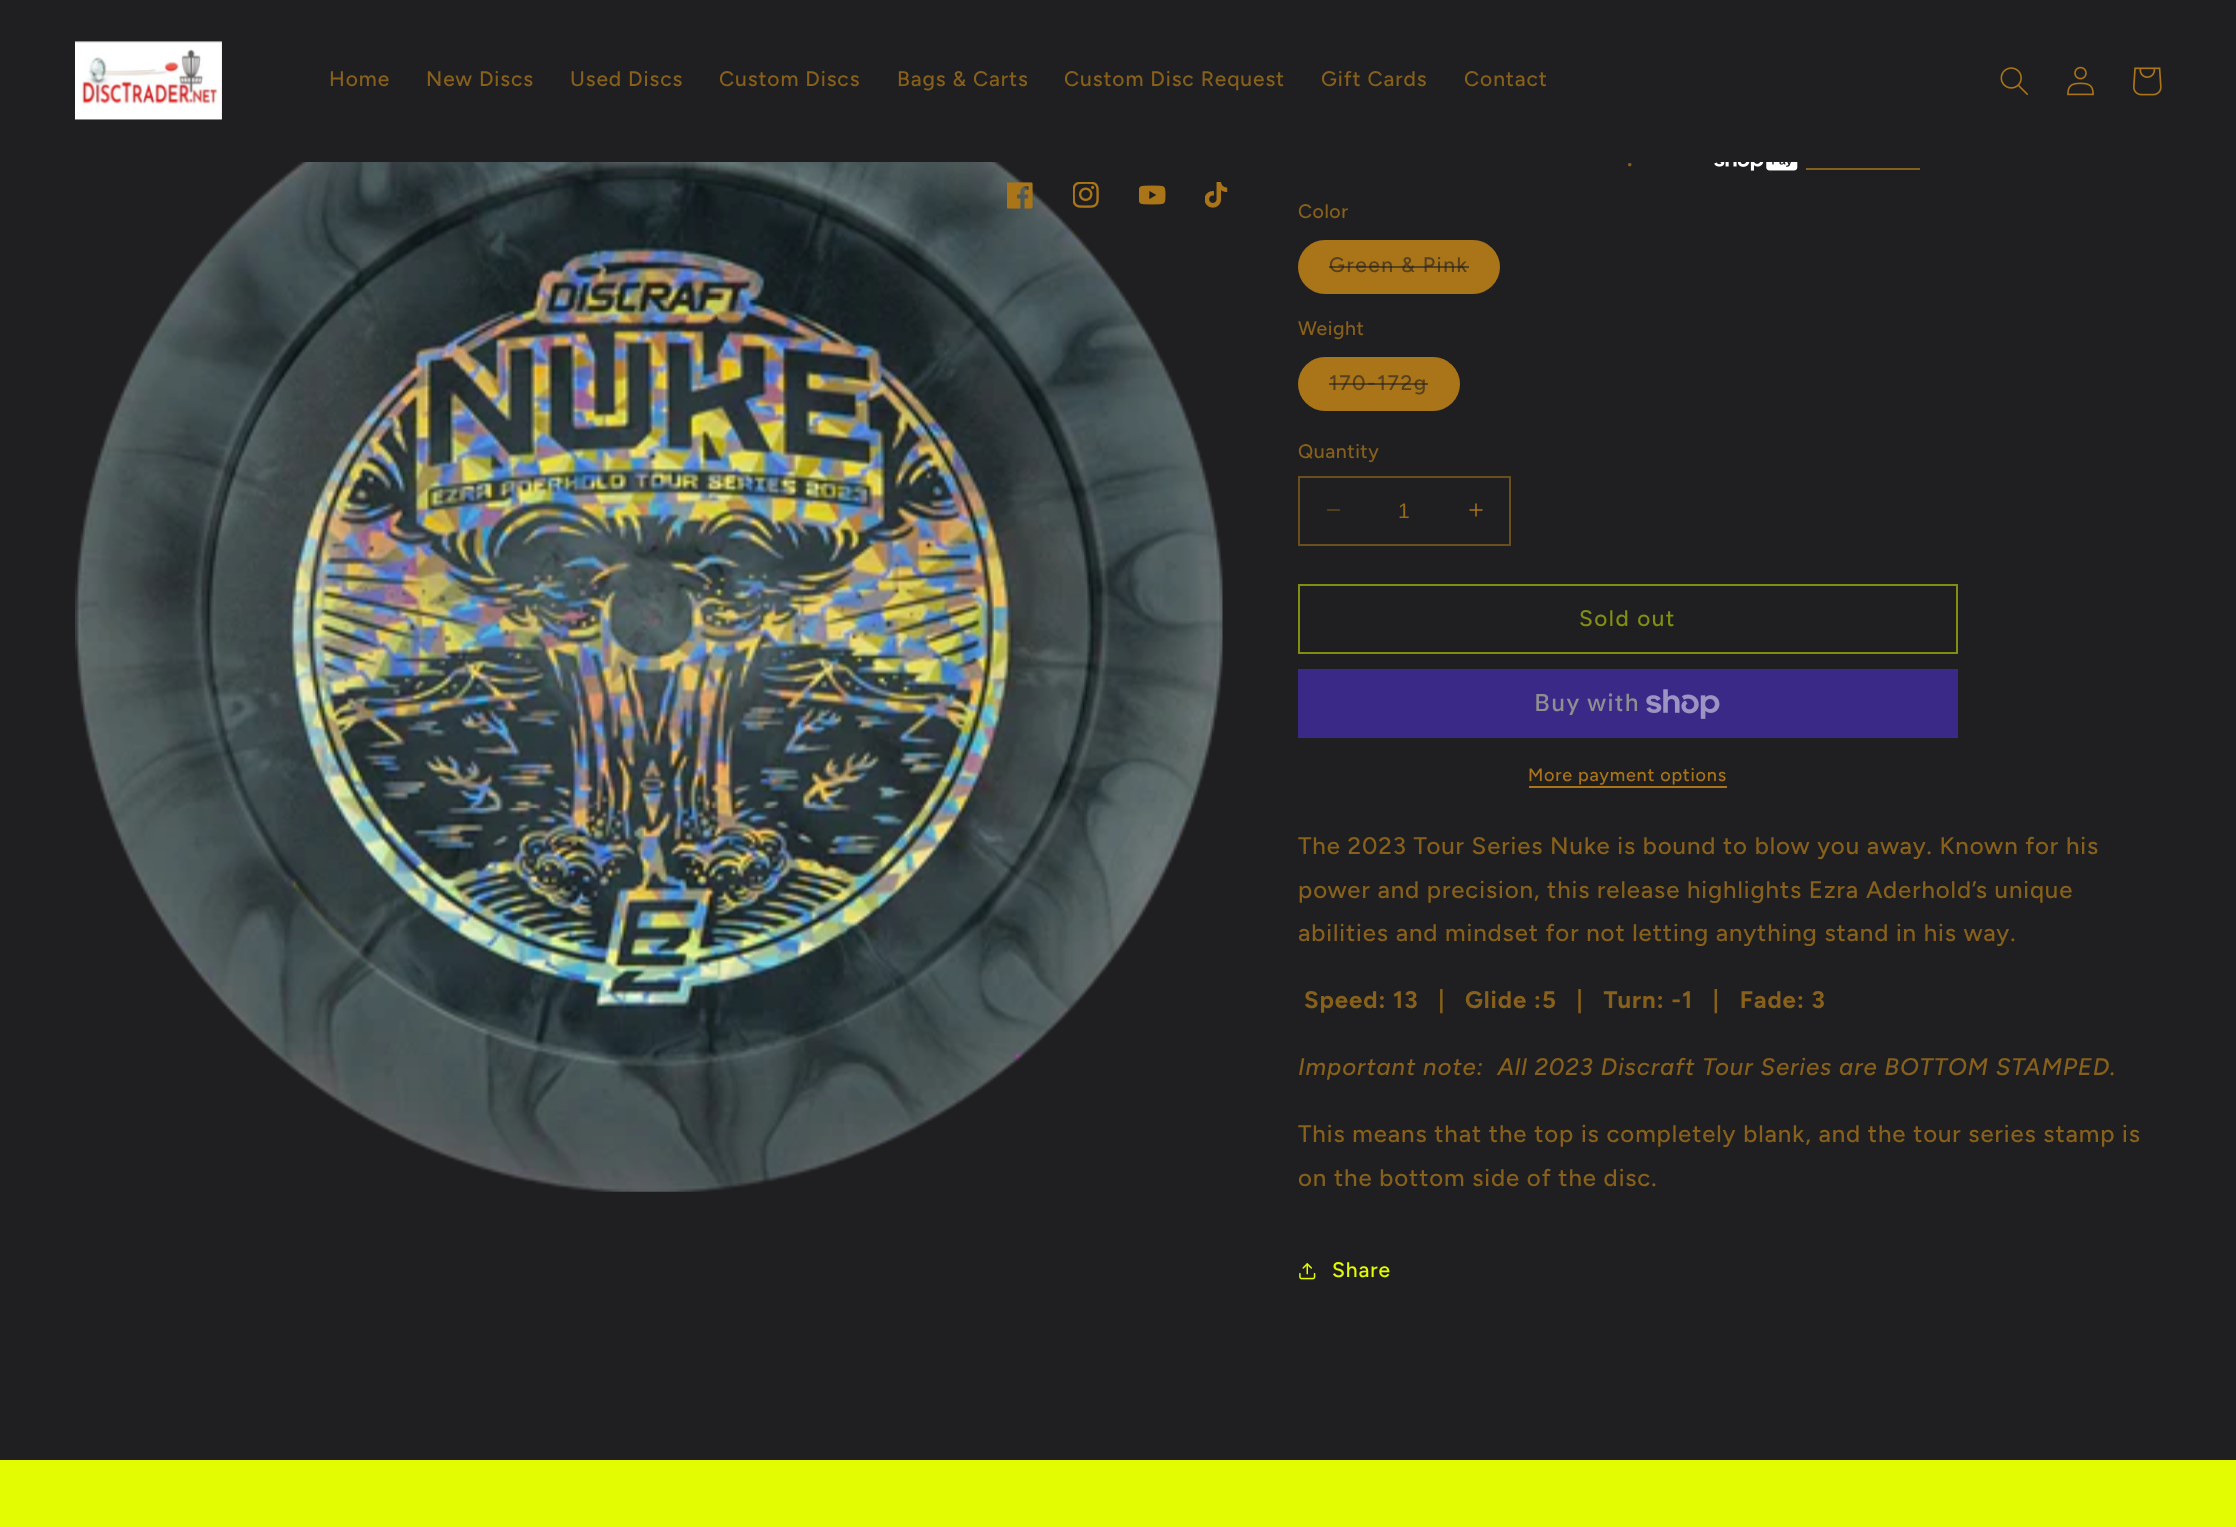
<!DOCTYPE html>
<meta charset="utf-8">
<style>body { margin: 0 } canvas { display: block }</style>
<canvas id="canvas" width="2236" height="1527"></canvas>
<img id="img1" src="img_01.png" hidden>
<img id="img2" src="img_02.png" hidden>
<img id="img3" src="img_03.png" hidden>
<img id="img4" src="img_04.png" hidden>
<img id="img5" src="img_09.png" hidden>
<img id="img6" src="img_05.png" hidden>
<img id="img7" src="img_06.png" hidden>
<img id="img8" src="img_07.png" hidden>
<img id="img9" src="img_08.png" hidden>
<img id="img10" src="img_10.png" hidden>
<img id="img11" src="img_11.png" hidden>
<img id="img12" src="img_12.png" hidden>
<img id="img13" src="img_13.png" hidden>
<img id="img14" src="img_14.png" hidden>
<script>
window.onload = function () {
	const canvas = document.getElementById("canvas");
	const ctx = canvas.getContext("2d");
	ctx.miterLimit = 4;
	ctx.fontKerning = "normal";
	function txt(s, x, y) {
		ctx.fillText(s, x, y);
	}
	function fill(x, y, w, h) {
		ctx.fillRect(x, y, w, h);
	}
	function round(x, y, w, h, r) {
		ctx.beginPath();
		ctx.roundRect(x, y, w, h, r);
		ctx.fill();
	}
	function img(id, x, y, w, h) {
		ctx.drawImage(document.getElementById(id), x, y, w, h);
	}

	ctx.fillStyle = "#1F1F21";
	fill(0, 0, 2236, 1527);
	img("img1", 75, 41, 147, 79);
	img("img2", 2000, 67, 28, 28);
	img("img3", 2067, 66, 27, 30);
	img("img4", 2133, 67, 29, 29);
	img("img5", 75, 162, 1148, 1030);
	img("img6", 1007, 182, 26, 27);
	img("img7", 1073, 182, 26, 26);
	img("img8", 1139, 185, 27, 20);
	img("img9", 1205, 182, 23, 26);
	img("img10", 1714, 162, 84, 9);
	ctx.fillStyle = "#87601B";
	fill(1806, 168, 114, 2);
	ctx.fillStyle = "#AA7519";
	round(1298, 240, 202, 54, 27);
	ctx.beginPath();
	ctx.roundRect(1299, 241, 200, 52, 26);
	ctx.strokeStyle = "rgba(170, 117, 25, 0.1)";
	ctx.lineWidth = 2;
	ctx.stroke();
	round(1298, 357, 162, 54, 27);
	ctx.beginPath();
	ctx.roundRect(1299, 358, 160, 52, 26);
	ctx.stroke();
	img("img11", 1326, 509, 15, 2);
	img("img12", 1469, 503, 14, 14);
	ctx.strokeStyle = "#6B4E1D";
	ctx.strokeRect(1299, 477, 211, 68);
	ctx.strokeStyle = "#818E12";
	ctx.strokeRect(1299, 585, 658, 68);
	ctx.fillStyle = "#3A2986";
	fill(1298, 669, 660, 69);
	img("img13", 1646, 689, 74, 30);
	ctx.fillStyle = "#AA7519";
	fill(1529, 786, 198, 2);
	img("img14", 1299, 1263, 17, 17);
	ctx.fillStyle = "#E3FC02";
	fill(0, 1460, 2236, 67);
	ctx.letterSpacing = "0.9px";
	ctx.font = "500 21px Figtree";
	ctx.fillStyle = "#87601B";
	txt("Home", 329, 86);
	txt("New Discs", 426, 86);
	txt("Used Discs", 570, 86);
	txt("Custom Discs", 719, 86);
	txt("Bags & Carts", 897, 86);
	txt("Custom Disc Request", 1064, 86);
	txt("Gift Cards", 1321, 86);
	txt("Contact", 1464, 86);
	ctx.letterSpacing = "0.5px";
	ctx.font = "bold 19.5px Noto Sans";
	txt(".", 1627, 166);
	ctx.font = "500 19.5px Figtree";
	txt("Color", 1298, 218);
	ctx.letterSpacing = "1.5px";
	ctx.font = "500 21px Figtree";
	ctx.fillStyle = "#57411E";
	txt("Green & Pink", 1329, 272);
	ctx.fillStyle = "rgba(31, 31, 33, 0.6)";
	fill(1329, 266, 140, 2);
	ctx.letterSpacing = "0.5px";
	ctx.font = "500 19.5px Figtree";
	ctx.fillStyle = "#87601B";
	txt("Weight", 1298, 335);
	ctx.letterSpacing = "1.5px";
	ctx.font = "500 21px Figtree";
	ctx.fillStyle = "#57411E";
	txt("170-172g", 1329, 390);
	ctx.fillStyle = "rgba(31, 31, 33, 0.6)";
	fill(1329, 383, 99, 2);
	ctx.letterSpacing = "0.5px";
	ctx.font = "500 19.5px Figtree";
	ctx.fillStyle = "#87601B";
	txt("Quantity", 1298, 458);
	ctx.letterSpacing = "0px";
	ctx.font = "21px Liberation Sans";
	ctx.fillStyle = "#95681A";
	txt("1", 1398, 518);
	ctx.letterSpacing = "1.5px";
	ctx.font = "500 22.5px Figtree";
	ctx.fillStyle = "#818E12";
	txt("Sold out", 1579, 626);
	ctx.letterSpacing = "0.9px";
	ctx.font = "500 24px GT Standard";
	ctx.fillStyle = "#8F8F90";
	txt("Buy with", 1534, 711);
	ctx.letterSpacing = "0.75px";
	ctx.font = "500 18px Figtree";
	ctx.fillStyle = "#AA7519";
	txt("More payment options", 1528, 781);
	ctx.letterSpacing = "0.9px";
	ctx.font = "500 24px Figtree";
	ctx.fillStyle = "#87601B";
	txt("The 2023 Tour Series Nuke is bound to blow you away. Known for his", 1298, 854);
	txt("power and precision, this release highlights Ezra Aderhold’s unique", 1298, 898);
	txt("abilities and mindset for not letting anything stand in his way.", 1298, 941);
	ctx.font = "bold 24px Figtree";
	txt("Speed: 13   |   Glide :5   |   Turn: -1   |   Fade: 3", 1304, 1008);
	ctx.font = "italic 500 24px Figtree";
	txt("Important note:  All 2023 Discraft Tour Series are BOTTOM STAMPED.", 1298, 1075);
	ctx.font = "500 24px Figtree";
	txt("This means that the top is completely blank, and the tour series stamp is", 1298, 1142);
	txt("on the bottom side of the disc.", 1298, 1186);
	ctx.font = "500 21px Figtree";
	ctx.fillStyle = "#E3FC02";
	txt("Share", 1332, 1277);
};
</script>
